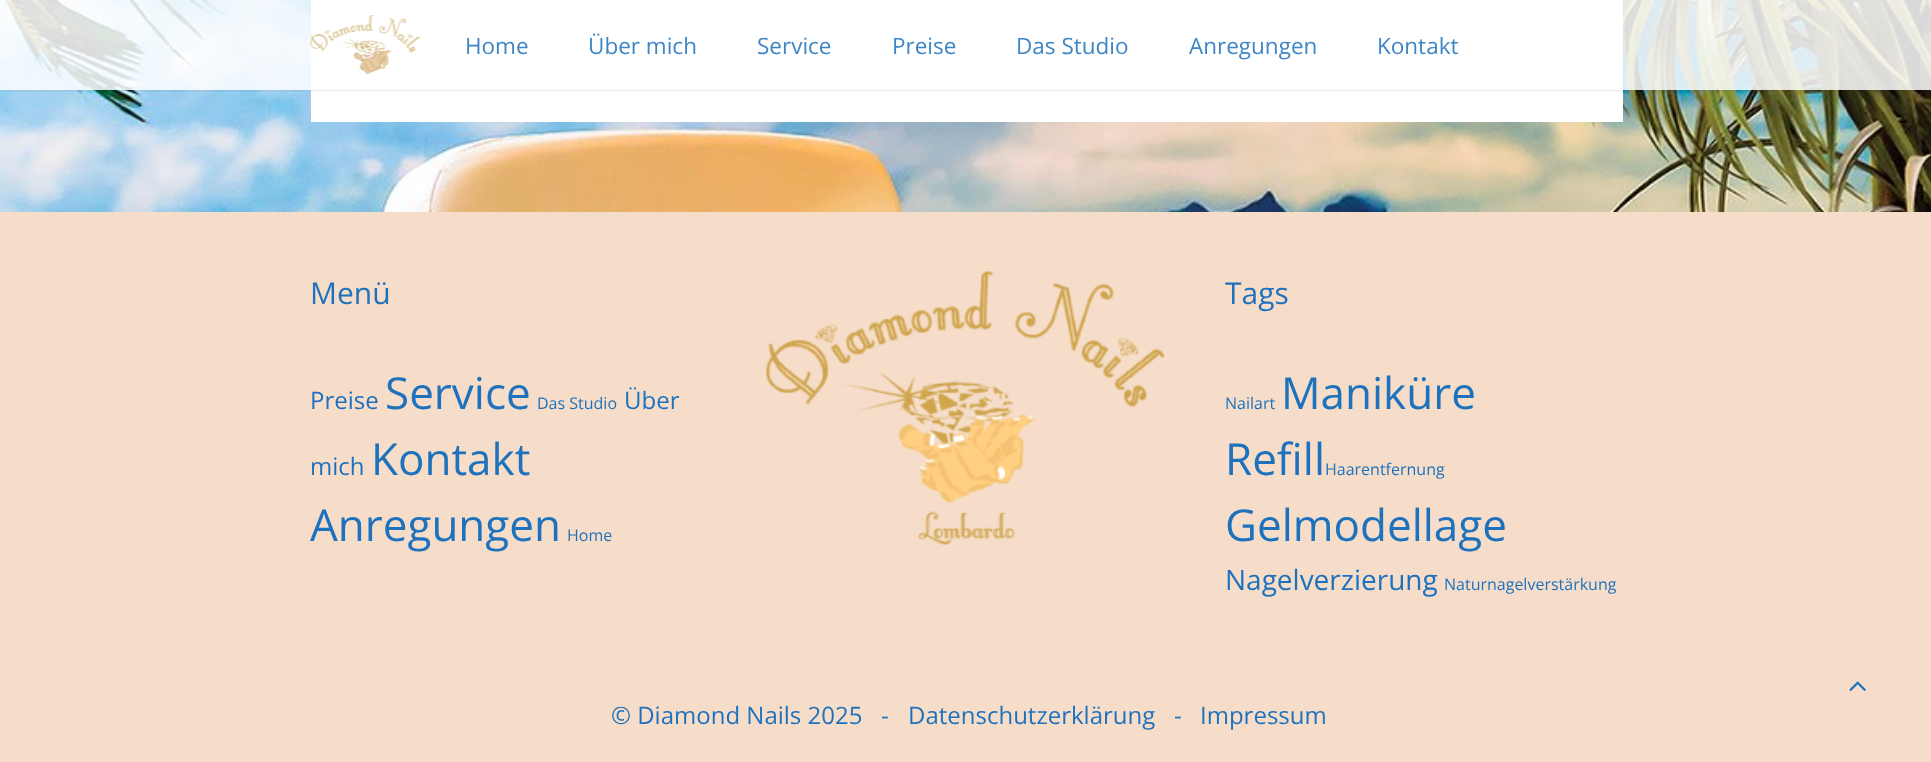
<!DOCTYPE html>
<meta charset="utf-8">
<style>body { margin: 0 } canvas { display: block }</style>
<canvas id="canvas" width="1931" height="762"></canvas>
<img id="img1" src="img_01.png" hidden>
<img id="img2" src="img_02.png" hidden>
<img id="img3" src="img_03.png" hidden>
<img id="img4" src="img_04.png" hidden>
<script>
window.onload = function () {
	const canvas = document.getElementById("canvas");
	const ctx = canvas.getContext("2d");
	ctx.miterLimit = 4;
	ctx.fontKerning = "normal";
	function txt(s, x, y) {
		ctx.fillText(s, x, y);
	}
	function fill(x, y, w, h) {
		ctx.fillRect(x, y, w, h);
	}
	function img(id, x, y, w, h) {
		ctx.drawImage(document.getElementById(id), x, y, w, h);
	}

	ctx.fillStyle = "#FFFFFF";
	fill(0, 0, 1931, 762);
	img("img1", 0, 0, 1931, 212);
	fill(311, 0, 1312, 122);
	ctx.save();
	ctx.beginPath();
	ctx.rect(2, 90, 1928, 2);
	ctx.clip();
	ctx.fillStyle = "rgba(0, 0, 0, 0.17)";
	ctx.filter = "blur(1.5px)";
	ctx.beginPath();
	ctx.rect(3, 6, 1926, 84);
	ctx.fill();
	ctx.filter = "none";
	ctx.restore();
	ctx.fillStyle = "rgba(255, 255, 255, 0.85)";
	fill(0, 0, 1931, 90);
	img("img2", 310, 15, 111, 59);
	ctx.fillStyle = "#F6DDC9";
	fill(0, 212, 1931, 550);
	img("img3", 766, 271, 398, 274);
	img("img4", 1849, 681, 17, 11);
	ctx.font = "22.5px Open Sans";
	ctx.fillStyle = "#3F86C6";
	txt("Home", 465, 54);
	txt("Über mich", 588, 54);
	txt("Service", 757, 54);
	txt("Preise", 892, 54);
	txt("Das Studio", 1016, 54);
	txt("Anregungen", 1189, 54);
	txt("Kontakt", 1377, 54);
	ctx.font = "30px Open Sans";
	ctx.fillStyle = "#1E72BD";
	txt("Menü", 310, 304);
	ctx.font = "24px Open Sans";
	txt("Preise", 310, 409);
	ctx.font = "44px Open Sans";
	txt("Service", 385, 409);
	ctx.font = "16px Open Sans";
	txt("Das Studio", 537, 409);
	ctx.font = "24px Open Sans";
	txt("Über", 624, 409);
	txt("mich", 310, 475);
	ctx.font = "44px Open Sans";
	txt("Kontakt", 371, 475);
	txt("Anregungen", 310, 541);
	ctx.font = "16px Open Sans";
	txt("Home", 567, 541);
	ctx.font = "30px Open Sans";
	txt("Tags", 1225, 304);
	ctx.font = "16px Open Sans";
	txt("Nailart", 1225, 409);
	ctx.font = "44px Open Sans";
	txt("Maniküre", 1281, 409);
	txt("Refill", 1225, 475);
	ctx.font = "16px Open Sans";
	txt("Haarentfernung", 1325, 475);
	ctx.font = "44px Open Sans";
	txt("Gelmodellage", 1225, 541);
	ctx.font = "28px Open Sans";
	txt("Nagelverzierung", 1225, 590);
	ctx.font = "16px Open Sans";
	txt("Naturnagelverstärkung", 1444, 590);
	ctx.font = "24px Open Sans";
	txt("© Diamond Nails 2025   -", 611, 724);
	txt("Datenschutzerklärung", 908, 724);
	txt("-", 1174, 724);
	txt("Impressum", 1200, 724);
};
</script>
